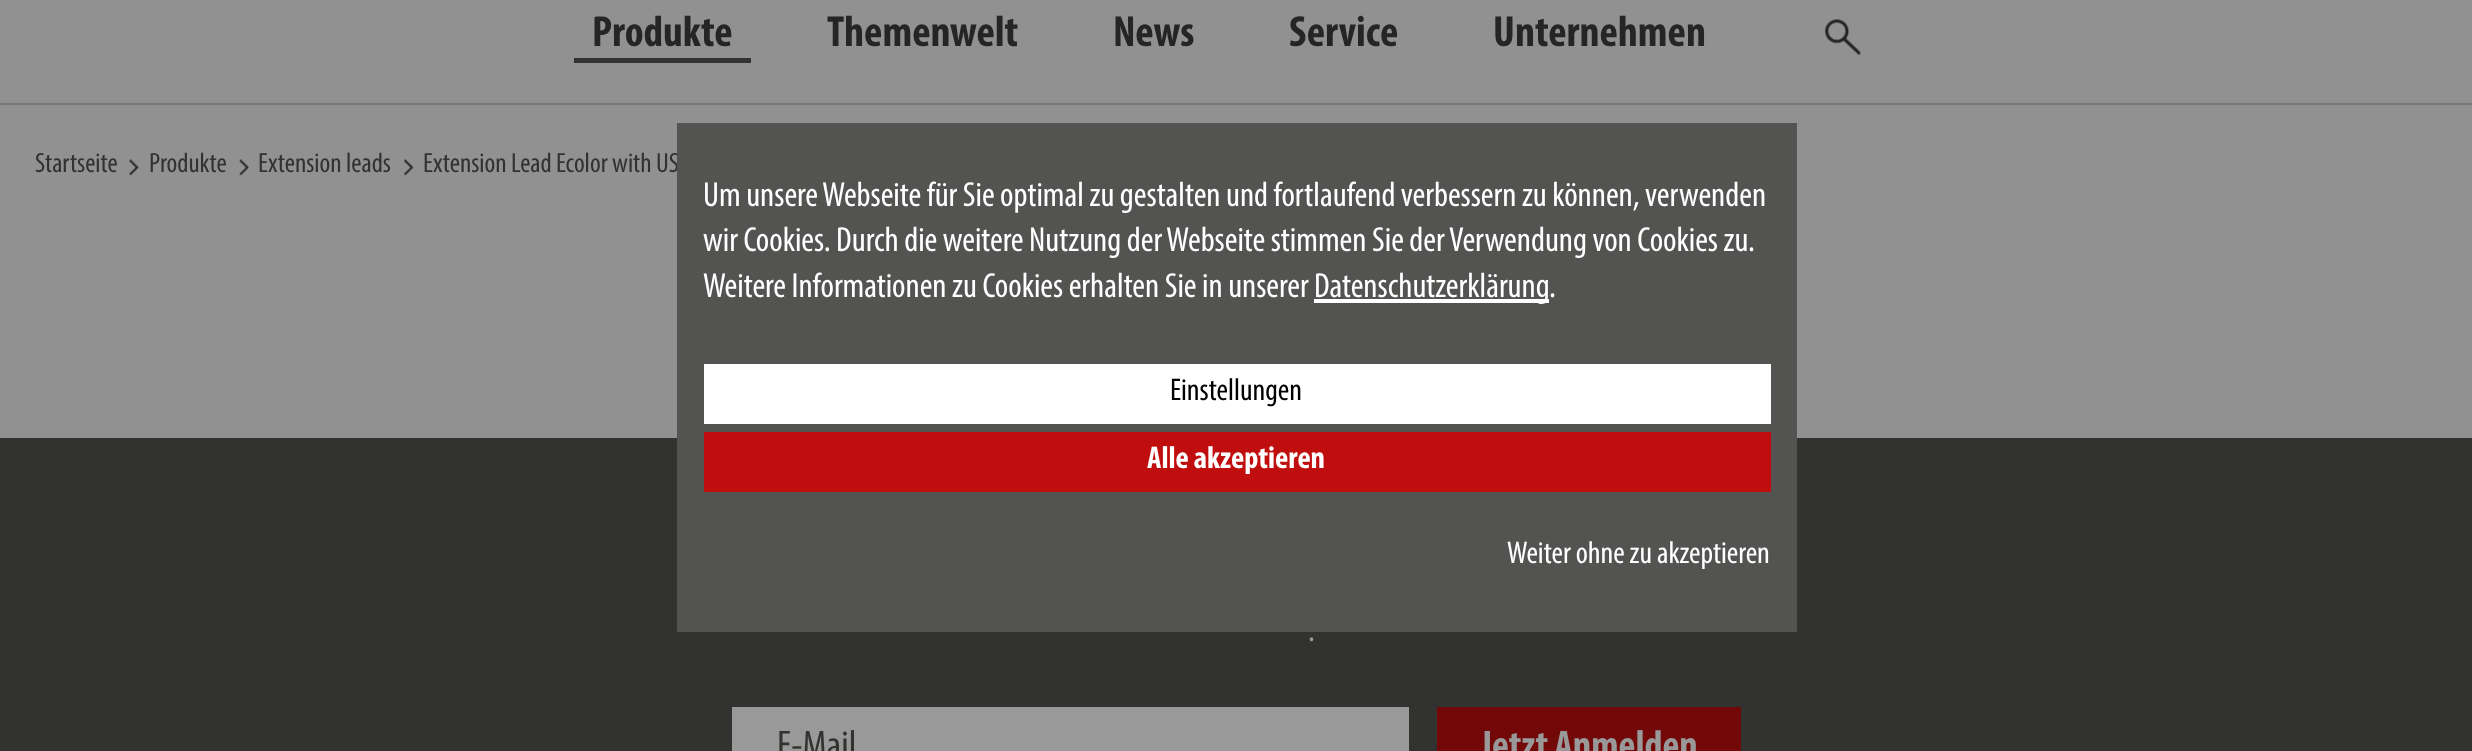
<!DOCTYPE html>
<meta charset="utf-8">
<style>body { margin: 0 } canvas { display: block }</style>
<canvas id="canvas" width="2472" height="751"></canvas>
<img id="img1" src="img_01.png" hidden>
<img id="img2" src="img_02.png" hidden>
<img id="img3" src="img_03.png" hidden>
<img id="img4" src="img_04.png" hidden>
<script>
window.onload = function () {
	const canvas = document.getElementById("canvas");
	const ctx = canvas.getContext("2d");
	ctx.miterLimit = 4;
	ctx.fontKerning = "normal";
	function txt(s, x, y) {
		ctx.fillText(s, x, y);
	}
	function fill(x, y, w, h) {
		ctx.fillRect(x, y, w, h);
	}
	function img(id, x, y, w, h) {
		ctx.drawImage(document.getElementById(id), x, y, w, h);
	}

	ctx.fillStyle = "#919191";
	fill(0, 0, 2472, 751);
	ctx.fillStyle = "#323231";
	fill(574, 58, 177, 5);
	img("img1", 1825, 19, 36, 36);
	ctx.fillStyle = "#7A7A7A";
	fill(0, 103, 2472, 2);
	img("img2", 129, 159, 10, 17);
	img("img3", 239, 159, 10, 17);
	img("img4", 404, 159, 10, 17);
	ctx.fillStyle = "#323231";
	fill(0, 438, 2472, 313);
	ctx.fillStyle = "#999999";
	fill(732, 707, 677, 44);
	ctx.fillStyle = "#730808";
	fill(1437, 707, 304, 44);
	ctx.font = "bold 43.75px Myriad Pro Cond";
	ctx.fillStyle = "#262525";
	txt("Produkte", 592, 46);
	txt("Themenwelt", 827, 46);
	txt("News", 1113, 46);
	txt("Service", 1289, 46);
	txt("Unternehmen", 1493, 46);
	ctx.font = "28px Myriad Pro Cond";
	ctx.fillStyle = "#323231";
	txt("Startseite", 35, 172);
	txt("Produkte", 149, 172);
	txt("Extension leads", 258, 172);
	txt("Extension Lead Ecolor with US", 423, 172);
	ctx.fillStyle = "#535352";
	fill(677, 123, 1120, 509);
	ctx.font = "35px Myriad Pro Cond";
	ctx.fillStyle = "#FFFFFF";
	txt("Um unsere Webseite für Sie optimal zu gestalten und fortlaufend verbessern zu können, verwenden", 703, 206);
	txt("wir Cookies. Durch die weitere Nutzung der Webseite stimmen Sie der Verwendung von Cookies zu.", 703, 251);
	txt("Weitere Informationen zu Cookies erhalten Sie in unserer", 703, 297);
	fill(1314, 299, 235, 4);
	txt("Datenschutzerklärung", 1314, 297);
	txt(".", 1549, 297);
	fill(704, 364, 1067, 60);
	ctx.font = "31.5px Myriad Pro Cond";
	ctx.fillStyle = "#000000";
	txt("Einstellungen", 1170, 400);
	ctx.fillStyle = "#C00D0D";
	fill(704, 432, 1067, 60);
	ctx.font = "bold 31.5px Myriad Pro Cond";
	ctx.fillStyle = "#FFFFFF";
	txt("Alle akzeptieren", 1147, 468);
	ctx.font = "31.5px Myriad Pro Cond";
	txt("Weiter ohne zu akzeptieren", 1507, 563);
	ctx.font = "35px Myriad Pro Cond";
	ctx.fillStyle = "#999999";
	txt(".", 1308, 641);
	ctx.font = "40.25px Myriad Pro Cond";
	ctx.fillStyle = "#323231";
	txt("E-Mail", 777, 758);
	ctx.font = "bold 40.25px Myriad Pro Cond";
	ctx.fillStyle = "#999999";
	txt("Jetzt Anmelden", 1480, 758);
};
</script>
